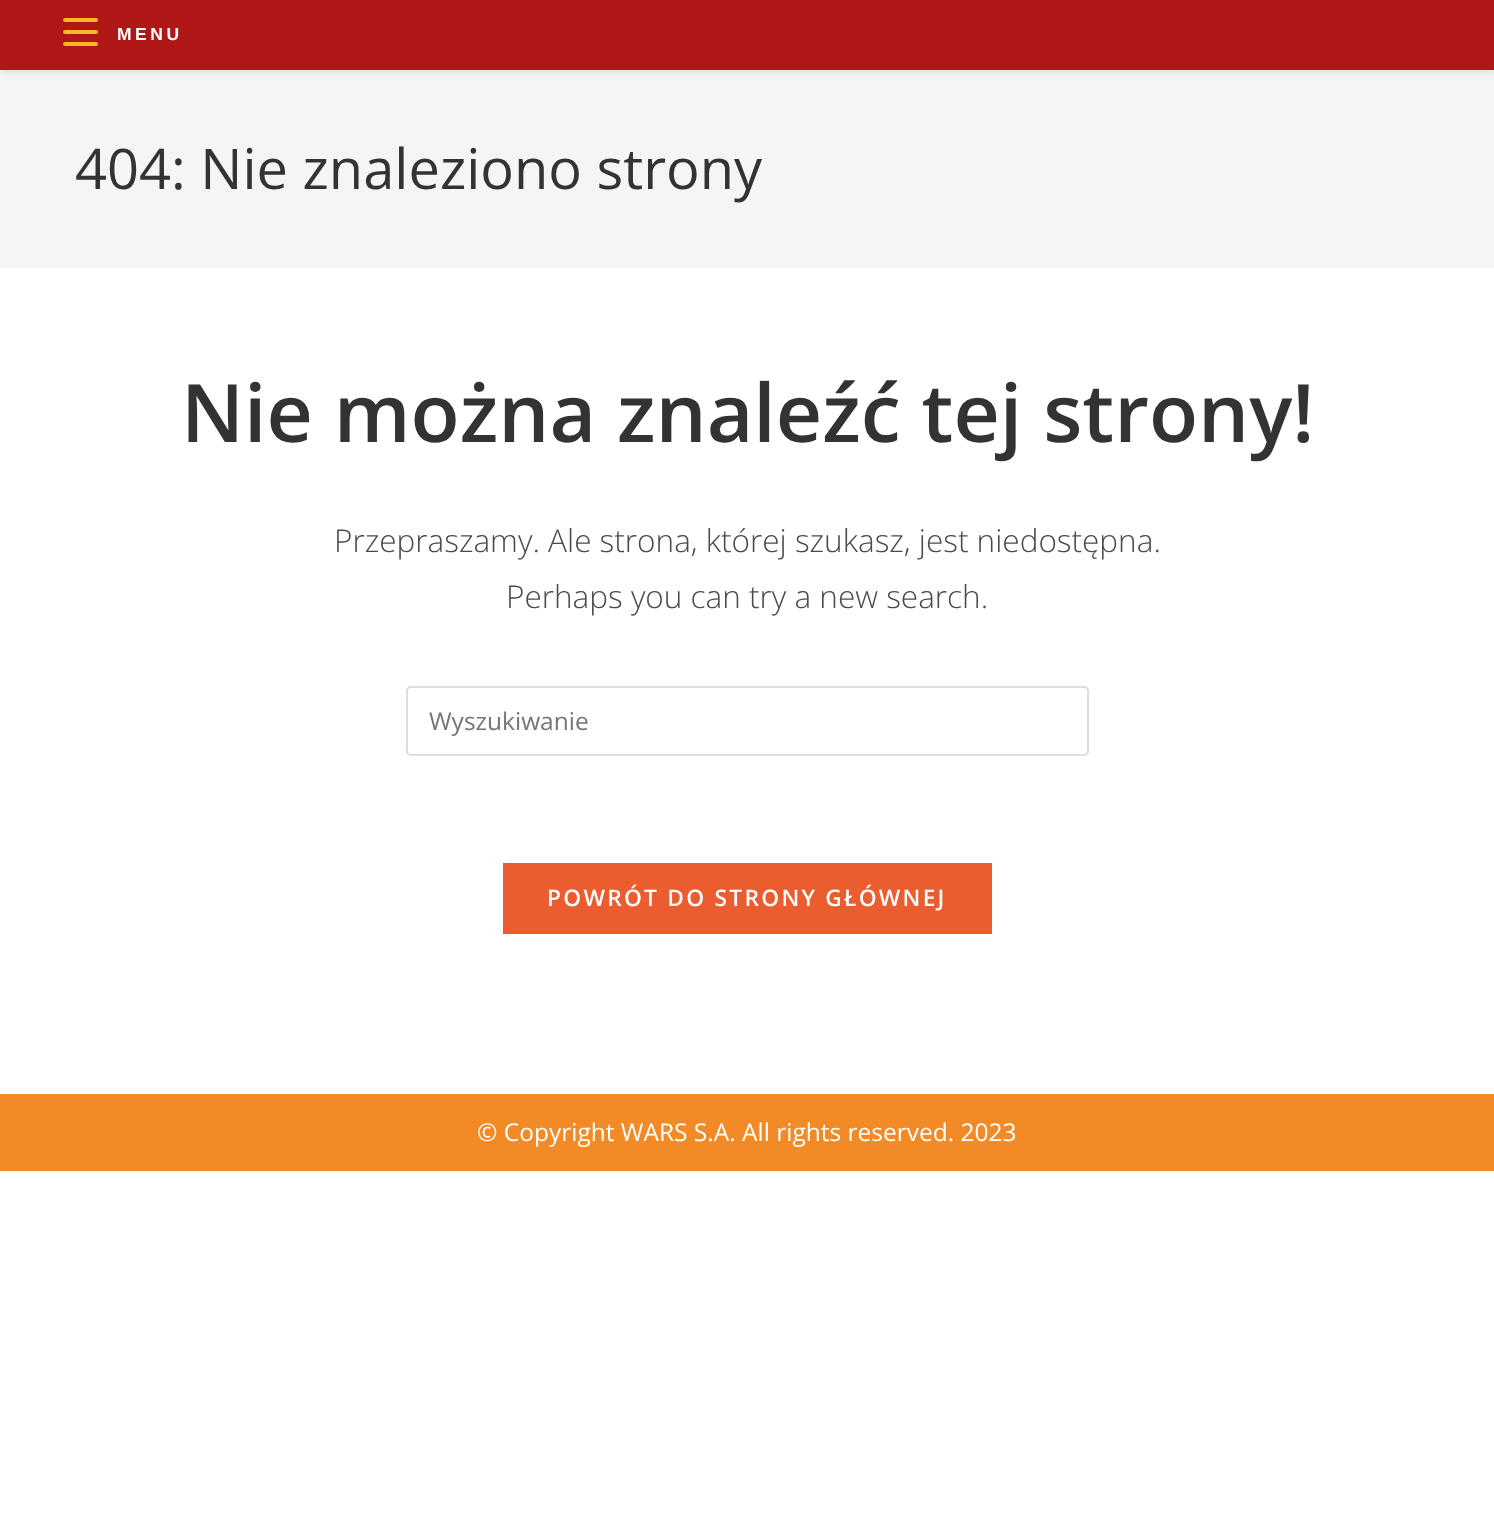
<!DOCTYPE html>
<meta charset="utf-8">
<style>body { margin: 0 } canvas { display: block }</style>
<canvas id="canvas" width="1494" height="1514"></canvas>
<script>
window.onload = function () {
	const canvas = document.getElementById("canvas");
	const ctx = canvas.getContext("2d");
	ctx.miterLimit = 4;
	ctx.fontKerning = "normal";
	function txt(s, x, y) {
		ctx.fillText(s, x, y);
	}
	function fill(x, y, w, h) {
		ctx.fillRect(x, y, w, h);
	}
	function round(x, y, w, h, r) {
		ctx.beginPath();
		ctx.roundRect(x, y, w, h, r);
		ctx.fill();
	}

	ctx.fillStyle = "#FFFFFF";
	fill(0, 0, 1494, 1514);
	ctx.fillStyle = "#F5F5F5";
	fill(0, 70, 1494, 198);
	ctx.fillStyle = "rgba(0, 0, 0, 0.1)";
	ctx.filter = "blur(4.5px)";
	ctx.beginPath();
	ctx.rect(0, 2, 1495, 70);
	ctx.fill();
	ctx.filter = "none";
	ctx.fillStyle = "#AF1817";
	fill(0, 0, 1494, 70);
	ctx.fillStyle = "#FAB826";
	round(63, 30, 35, 4, 2);
	round(63, 18, 35, 4, 2);
	round(63, 42, 35, 4, 2);
	ctx.beginPath();
	ctx.roundRect(407, 687, 681, 68, 4);
	ctx.strokeStyle = "#DDDDDD";
	ctx.lineWidth = 2;
	ctx.stroke();
	ctx.fillStyle = "#EB5C2E";
	fill(503, 863, 489, 71);
	ctx.fillStyle = "#F28B26";
	fill(0, 1094, 1494, 77);
	ctx.letterSpacing = "3.5px";
	ctx.font = "bold 17.5px Liberation Sans";
	ctx.fillStyle = "#FFFFFF";
	txt("MENU", 117, 40);
	ctx.letterSpacing = "0px";
	ctx.font = "56px Open Sans";
	ctx.fillStyle = "#333333";
	txt("404: Nie znaleziono strony", 75, 189);
	ctx.font = "600 80.5px Open Sans";
	txt("Nie można znaleźć tej strony!", 181, 442);
	ctx.font = "300 31.5px Open Sans";
	ctx.fillStyle = "#4A4A4A";
	txt("Przepraszamy. Ale strona, której szukasz, jest niedostępna.", 334, 552);
	txt("Perhaps you can try a new search.", 506, 608);
	ctx.font = "24.5px Open Sans";
	ctx.fillStyle = "#757575";
	txt("Wyszukiwanie", 429, 730);
	ctx.letterSpacing = "2.25px";
	ctx.font = "600 22.75px Open Sans";
	ctx.fillStyle = "#FFFFFF";
	txt("POWRÓT DO STRONY GŁÓWNEJ", 547, 906);
	ctx.letterSpacing = "0px";
	ctx.font = "24.5px Open Sans";
	txt("© Copyright WARS S.A. All rights reserved. 2023", 477, 1141);
};
</script>
